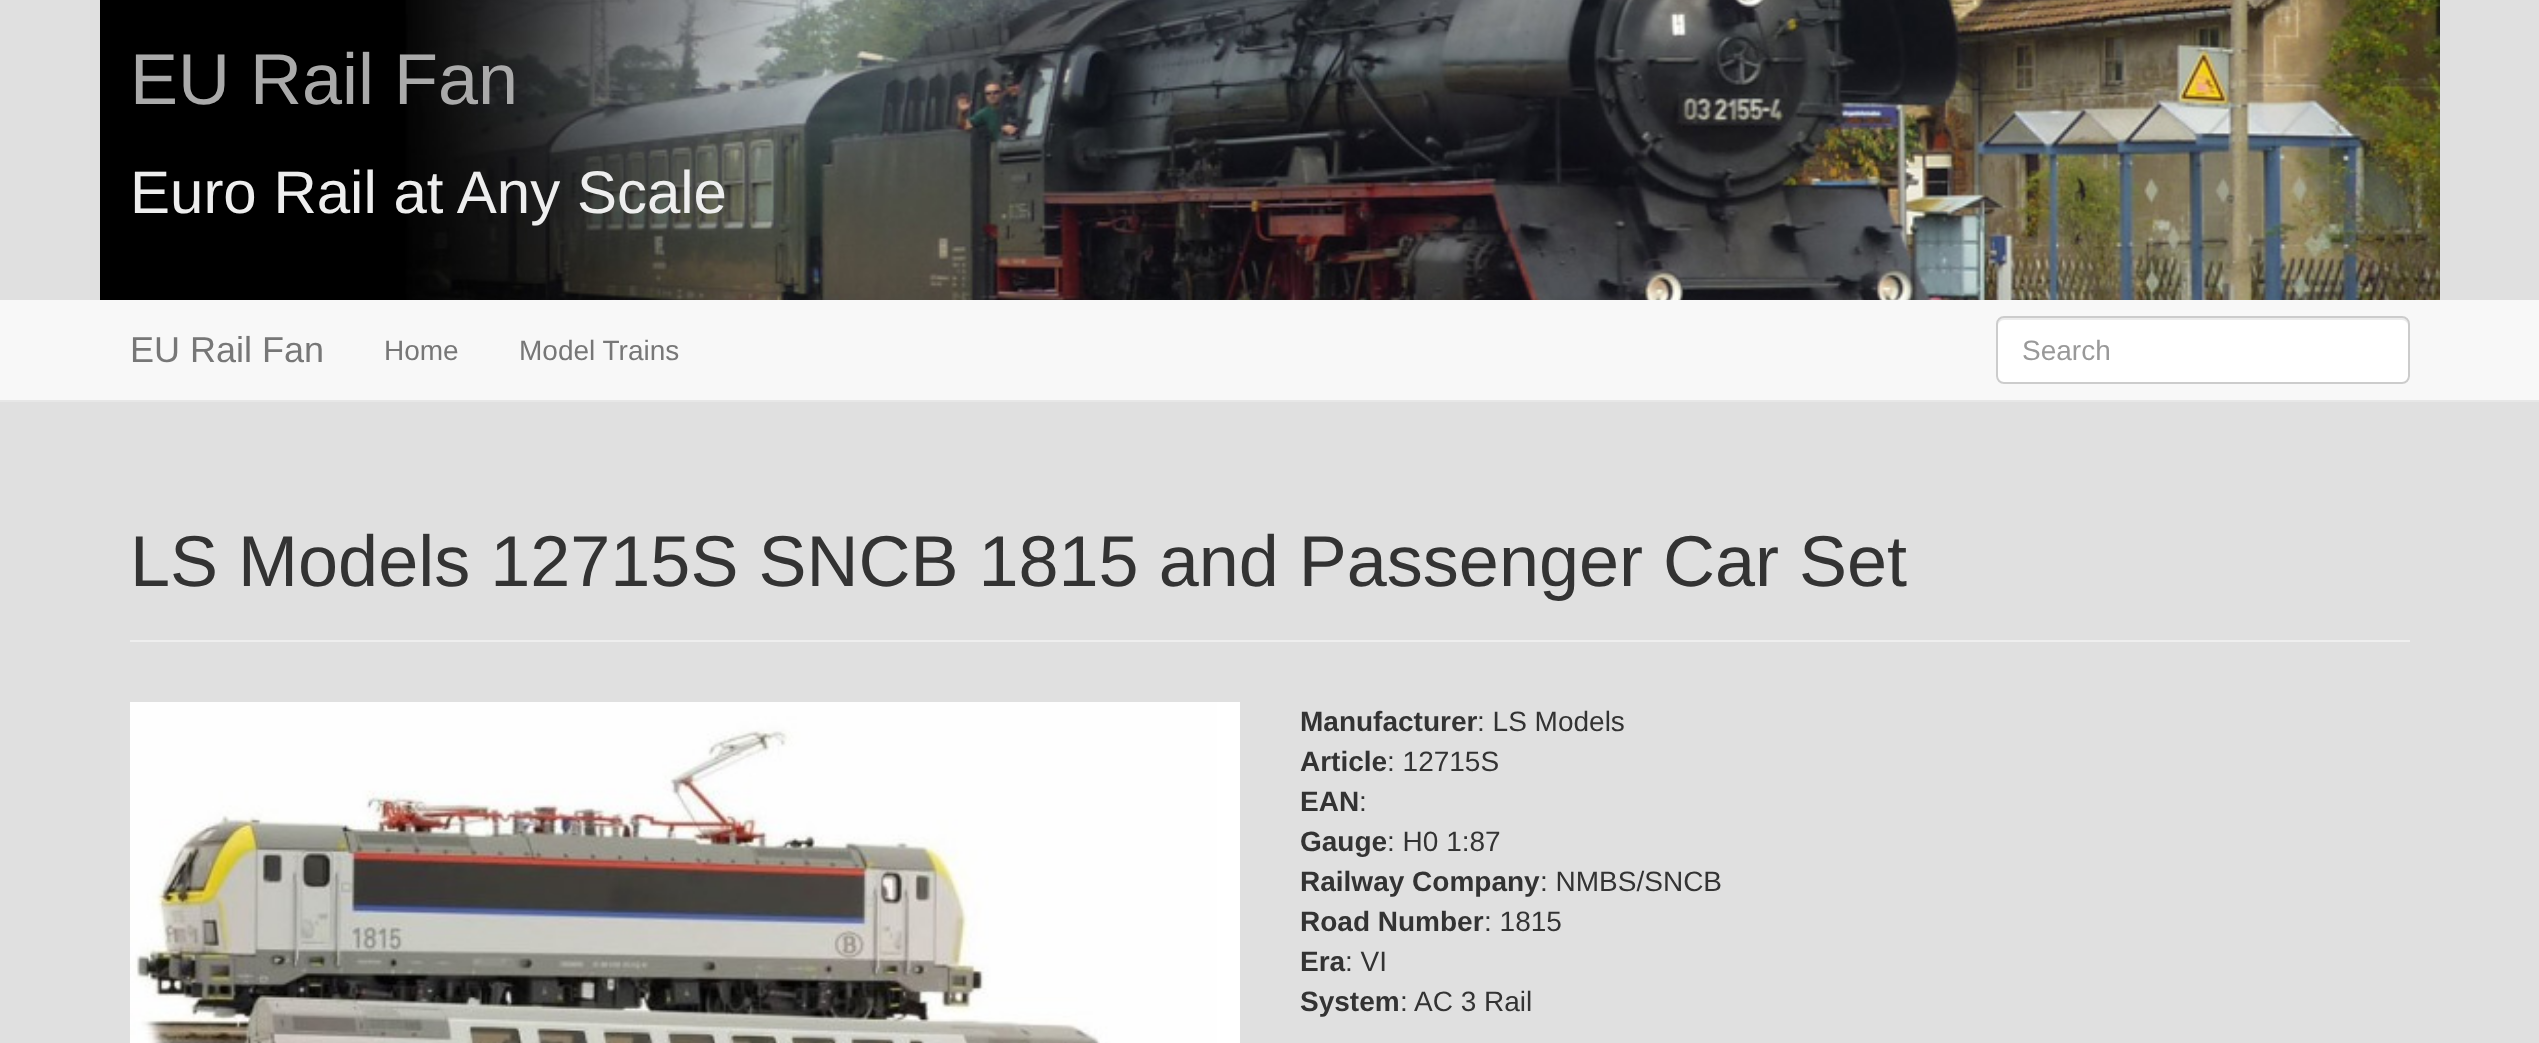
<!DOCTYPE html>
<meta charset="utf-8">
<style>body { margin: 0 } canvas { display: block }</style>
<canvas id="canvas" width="2539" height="1043"></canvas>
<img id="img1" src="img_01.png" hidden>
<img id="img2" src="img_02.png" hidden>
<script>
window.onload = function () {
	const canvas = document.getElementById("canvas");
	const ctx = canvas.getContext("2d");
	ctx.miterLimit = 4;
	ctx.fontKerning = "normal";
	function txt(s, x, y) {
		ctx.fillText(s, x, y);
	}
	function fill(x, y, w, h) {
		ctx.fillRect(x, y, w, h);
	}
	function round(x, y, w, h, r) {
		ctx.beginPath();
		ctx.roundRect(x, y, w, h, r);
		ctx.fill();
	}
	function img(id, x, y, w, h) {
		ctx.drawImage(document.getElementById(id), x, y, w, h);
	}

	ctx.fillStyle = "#E0E0E0";
	fill(0, 0, 2539, 1043);
	img("img1", 100, 0, 2340, 300);
	ctx.fillStyle = "#F8F8F8";
	fill(0, 300, 2539, 100);
	ctx.fillStyle = "#E7E7E7";
	fill(0, 400, 2539, 2);
	ctx.fillStyle = "#FFFFFF";
	round(1996, 316, 414, 68, 8);
	ctx.fillStyle = "#ECECEC";
	ctx.beginPath();
	ctx.moveTo(2004, 320);
	ctx.lineTo(2402, 320);
	ctx.bezierCurveTo(2405, 320, 2408, 323, 2408, 326);
	ctx.bezierCurveTo(2408, 322, 2407, 318, 2402, 318);
	ctx.lineTo(2004, 318);
	ctx.bezierCurveTo(1999, 318, 1998, 322, 1998, 326);
	ctx.bezierCurveTo(1998, 323, 2001, 320, 2004, 320);
	ctx.closePath();
	ctx.fill();
	ctx.beginPath();
	ctx.roundRect(1997, 317, 412, 66, 7);
	ctx.strokeStyle = "#CCCCCC";
	ctx.lineWidth = 2;
	ctx.stroke();
	ctx.fillStyle = "#EEEEEE";
	fill(130, 640, 2280, 2);
	img("img2", 130, 702, 1110, 341);
	ctx.font = "72px Liberation Sans";
	ctx.fillStyle = "#AAAAAA";
	txt("EU Rail Fan", 130, 104);
	ctx.font = "60px Liberation Sans";
	ctx.fillStyle = "#EEEEEE";
	txt("Euro Rail at Any Scale", 130, 213);
	ctx.font = "36px Liberation Sans";
	ctx.fillStyle = "#777777";
	txt("EU Rail Fan", 130, 362);
	ctx.font = "28px Liberation Sans";
	txt("Home", 384, 360);
	txt("Model Trains", 519, 360);
	ctx.fillStyle = "#999999";
	txt("Search", 2022, 360);
	ctx.font = "72px Liberation Sans";
	ctx.fillStyle = "#333333";
	txt("LS Models 12715S SNCB 1815 and Passenger Car Set", 130, 586);
	ctx.font = "bold 28px Liberation Sans";
	txt("Manufacturer", 1300, 731);
	ctx.font = "28px Liberation Sans";
	txt(": LS Models", 1477, 731);
	ctx.font = "bold 28px Liberation Sans";
	txt("Article", 1300, 771);
	ctx.font = "28px Liberation Sans";
	txt(": 12715S", 1387, 771);
	ctx.font = "bold 28px Liberation Sans";
	txt("EAN", 1300, 811);
	ctx.font = "28px Liberation Sans";
	txt(":", 1359, 811);
	ctx.font = "bold 28px Liberation Sans";
	txt("Gauge", 1300, 851);
	ctx.font = "28px Liberation Sans";
	txt(": H0 1:87", 1387, 851);
	ctx.font = "bold 28px Liberation Sans";
	txt("Railway Company", 1300, 891);
	ctx.font = "28px Liberation Sans";
	txt(": NMBS/SNCB", 1540, 891);
	ctx.font = "bold 28px Liberation Sans";
	txt("Road Number", 1300, 931);
	ctx.font = "28px Liberation Sans";
	txt(": 1815", 1484, 931);
	ctx.font = "bold 28px Liberation Sans";
	txt("Era", 1300, 971);
	ctx.font = "28px Liberation Sans";
	txt(": VI", 1345, 971);
	ctx.font = "bold 28px Liberation Sans";
	txt("System", 1300, 1011);
	ctx.font = "28px Liberation Sans";
	txt(": AC 3 Rail", 1400, 1011);
};
</script>
